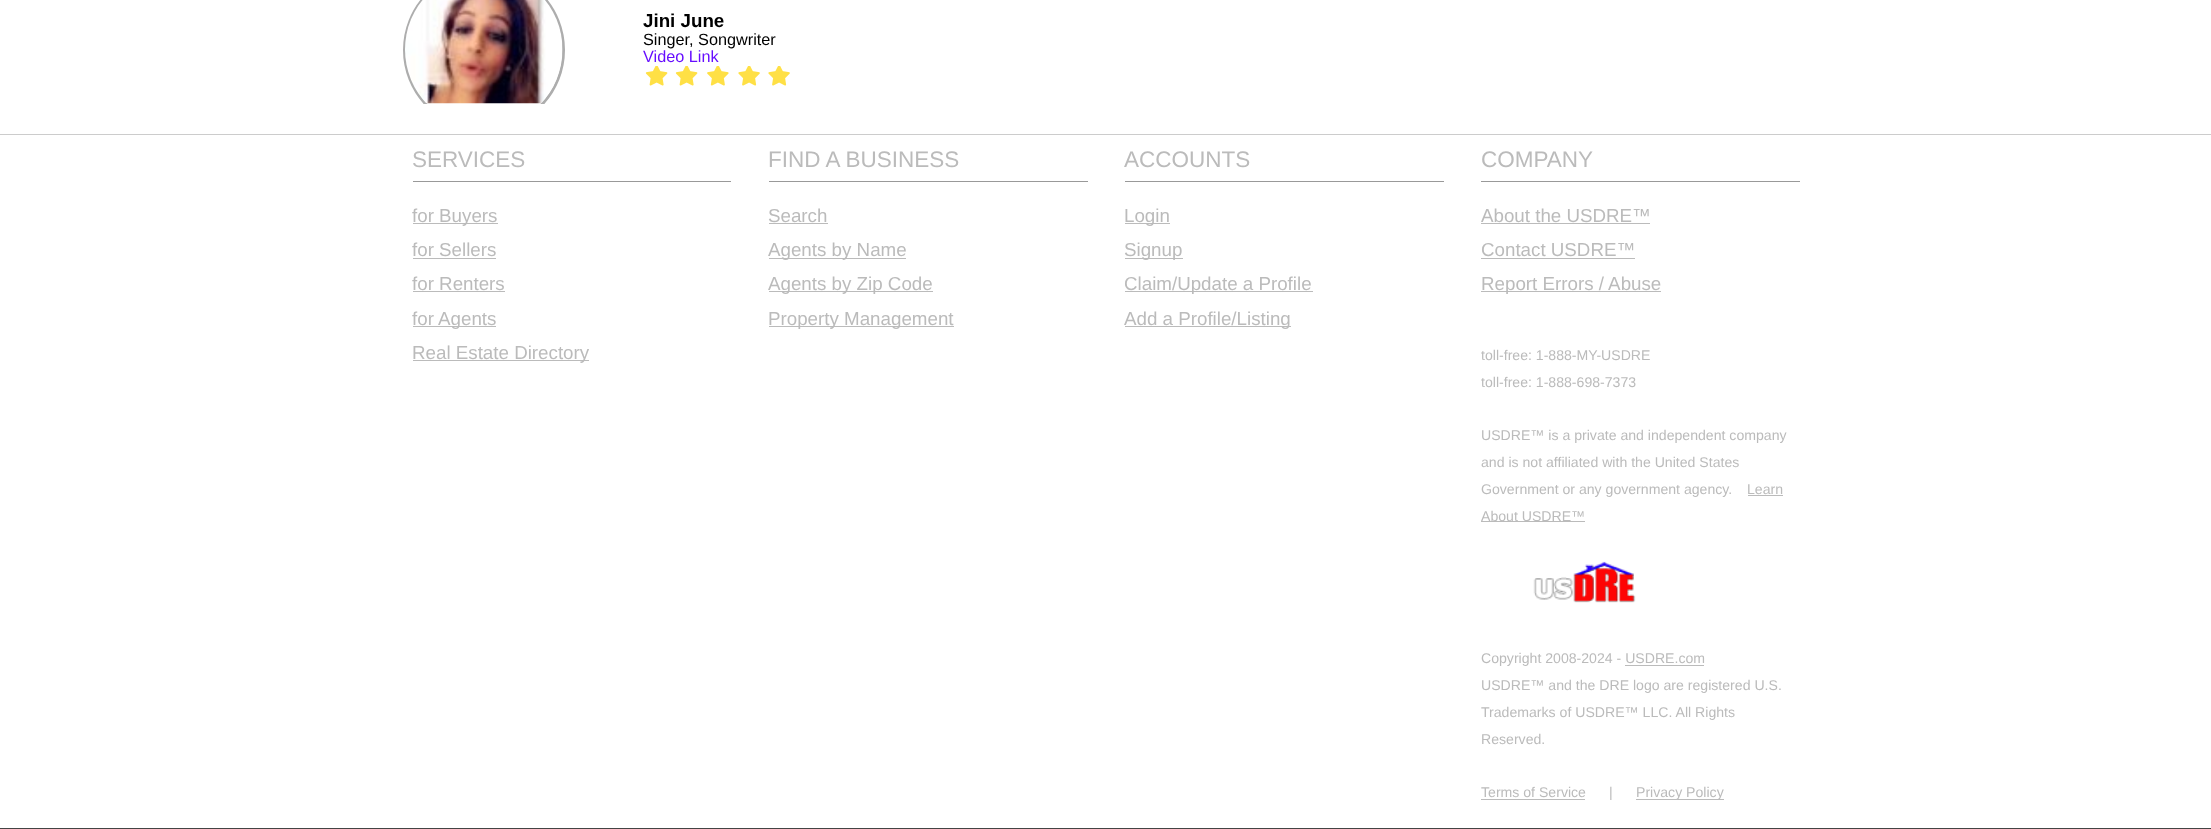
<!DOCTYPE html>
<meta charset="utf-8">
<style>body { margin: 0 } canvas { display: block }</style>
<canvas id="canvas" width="2211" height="829"></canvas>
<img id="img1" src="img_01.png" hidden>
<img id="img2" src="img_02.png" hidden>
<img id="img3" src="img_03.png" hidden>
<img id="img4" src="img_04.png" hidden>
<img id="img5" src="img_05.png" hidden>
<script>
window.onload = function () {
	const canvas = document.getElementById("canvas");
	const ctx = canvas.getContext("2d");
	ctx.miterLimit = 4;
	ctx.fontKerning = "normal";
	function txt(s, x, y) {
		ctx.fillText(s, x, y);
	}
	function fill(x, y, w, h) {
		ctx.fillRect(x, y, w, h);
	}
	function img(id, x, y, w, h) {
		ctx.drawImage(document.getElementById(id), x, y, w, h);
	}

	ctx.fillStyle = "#FFFFFF";
	fill(0, 0, 2211, 829);
	ctx.save();
	ctx.beginPath();
	ctx.rect(394, 0, 1425, 104);
	ctx.clip();
	ctx.beginPath();
	ctx.arc(484, 50, 79.5, 0, Math.PI * 2);
	ctx.strokeStyle = "#ADADAD";
	ctx.lineWidth = 3;
	ctx.stroke();
	ctx.restore();
	img("img1", 405, 0, 158, 104);
	img("img2", 645, 66, 23, 20);
	img("img2", 675, 66, 23, 20);
	img("img3", 707, 66, 22, 20);
	img("img4", 738, 66, 22, 20);
	img("img4", 768, 66, 22, 20);
	ctx.save();
	ctx.beginPath();
	ctx.rect(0, 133, 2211, 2);
	ctx.clip();
	ctx.fillStyle = "rgba(0, 0, 0, 0.2)";
	ctx.filter = "blur(0.5px)";
	ctx.beginPath();
	ctx.rect(0, 134, 2211, 694);
	ctx.fill();
	ctx.filter = "none";
	ctx.restore();
	ctx.fillStyle = "#444444";
	fill(0, 828, 2211, 1);
	ctx.fillStyle = "#999999";
	fill(413, 181, 318, 1);
	ctx.fillStyle = "#BBBBBB";
	fill(413, 223, 85, 1);
	fill(413, 258, 83, 1);
	fill(413, 291, 92, 1);
	fill(413, 326, 83, 1);
	fill(413, 360, 176, 1);
	ctx.fillStyle = "#999999";
	fill(769, 181, 319, 1);
	ctx.fillStyle = "#BBBBBB";
	fill(769, 223, 59, 1);
	fill(769, 258, 137, 1);
	fill(769, 291, 164, 1);
	fill(769, 326, 185, 1);
	ctx.fillStyle = "#999999";
	fill(1125, 181, 319, 1);
	ctx.fillStyle = "#BBBBBB";
	fill(1125, 223, 45, 1);
	fill(1125, 258, 58, 1);
	fill(1125, 291, 188, 1);
	fill(1125, 326, 166, 1);
	ctx.fillStyle = "#999999";
	fill(1481, 181, 319, 1);
	ctx.fillStyle = "#BBBBBB";
	fill(1481, 223, 169, 1);
	fill(1481, 258, 154, 1);
	fill(1481, 291, 180, 1);
	fill(1748, 495, 35, 1);
	fill(1481, 521, 104, 1);
	img("img5", 1533, 561, 103, 42);
	fill(1625, 665, 79, 1);
	fill(1481, 799, 104, 1);
	fill(1636, 799, 88, 1);
	ctx.font = "bold 18.75px Liberation Sans";
	ctx.fillStyle = "#000000";
	txt("Jini June", 643, 27);
	ctx.font = "16.25px Liberation Sans";
	txt("Singer, Songwriter", 643, 45);
	ctx.fillStyle = "#660DFF";
	txt("Video Link", 643, 62);
	ctx.font = "22.5px Liberation Sans";
	ctx.fillStyle = "#BBBBBB";
	txt("SERVICES", 412, 167);
	ctx.font = "18.75px Liberation Sans";
	txt("for Buyers", 412, 222);
	txt("for Sellers", 412, 256);
	txt("for Renters", 412, 290);
	txt("for Agents", 412, 325);
	txt("Real Estate Directory", 412, 359);
	ctx.font = "22.5px Liberation Sans";
	txt("FIND A BUSINESS", 768, 167);
	ctx.font = "18.75px Liberation Sans";
	txt("Search", 768, 222);
	txt("Agents by Name", 768, 256);
	txt("Agents by Zip Code", 768, 290);
	txt("Property Management", 768, 325);
	ctx.font = "22.5px Liberation Sans";
	txt("ACCOUNTS", 1124, 167);
	ctx.font = "18.75px Liberation Sans";
	txt("Login", 1124, 222);
	txt("Signup", 1124, 256);
	txt("Claim/Update a Profile", 1124, 290);
	txt("Add a Profile/Listing", 1124, 325);
	ctx.font = "22.5px Liberation Sans";
	txt("COMPANY", 1481, 167);
	ctx.font = "18.75px Liberation Sans";
	txt("About the USDRE™", 1481, 222);
	txt("Contact USDRE™", 1481, 256);
	txt("Report Errors / Abuse", 1481, 290);
	ctx.font = "14.1px Liberation Sans";
	txt("toll-free: 1-888-MY-USDRE", 1481, 360);
	txt("toll-free: 1-888-698-7373", 1481, 387);
	txt("USDRE™ is a private and independent company", 1481, 440);
	txt("and is not affiliated with the United States", 1481, 467);
	txt("Government or any government agency.", 1481, 494);
	txt("Learn", 1747, 494);
	txt("About USDRE™", 1481, 521);
	txt("Copyright 2008-2024 - USDRE.com", 1481, 663);
	txt("USDRE™ and the DRE logo are registered U.S.", 1481, 690);
	txt("Trademarks of USDRE™ LLC. All Rights", 1481, 717);
	txt("Reserved.", 1481, 744);
	txt("Terms of Service", 1481, 797);
	txt("|", 1609, 797);
	txt("Privacy Policy", 1636, 797);
};
</script>
